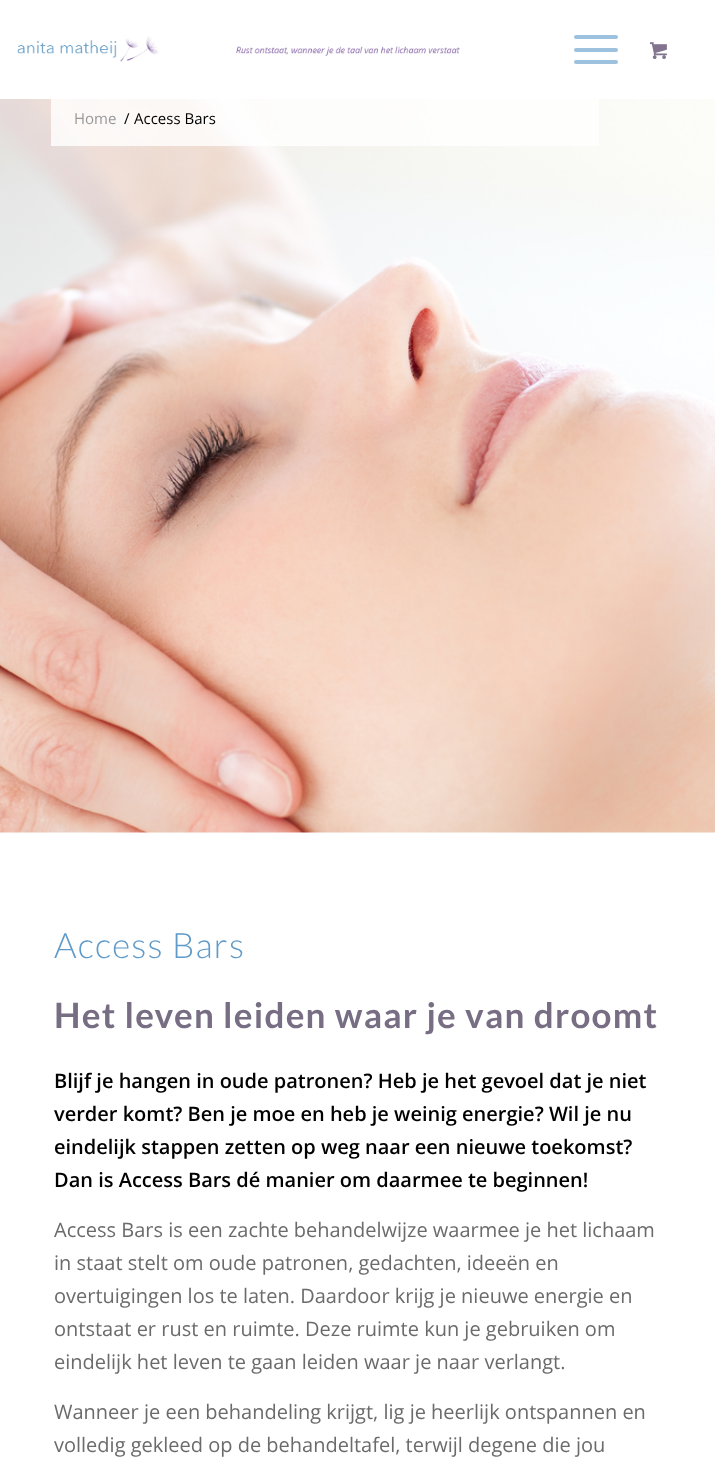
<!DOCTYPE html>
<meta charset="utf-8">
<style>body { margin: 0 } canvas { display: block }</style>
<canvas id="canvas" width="715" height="1466"></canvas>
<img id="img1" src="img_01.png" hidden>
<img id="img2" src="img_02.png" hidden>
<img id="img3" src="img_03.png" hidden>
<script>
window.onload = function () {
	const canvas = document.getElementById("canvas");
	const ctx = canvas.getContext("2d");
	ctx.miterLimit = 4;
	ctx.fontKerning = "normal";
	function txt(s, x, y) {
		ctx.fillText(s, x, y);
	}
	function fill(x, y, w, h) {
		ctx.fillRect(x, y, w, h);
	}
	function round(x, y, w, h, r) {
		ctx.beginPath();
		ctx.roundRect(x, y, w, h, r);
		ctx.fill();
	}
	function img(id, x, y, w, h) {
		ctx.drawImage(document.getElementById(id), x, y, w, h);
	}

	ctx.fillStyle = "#FFFFFF";
	fill(0, 0, 715, 1466);
	img("img1", 17, 36, 443, 26);
	ctx.fillStyle = "#9CC2DF";
	round(574, 48, 44, 4, 2);
	round(574, 35, 44, 4, 2);
	round(574, 60, 44, 4, 2);
	img("img2", 650, 42, 17, 17);
	img("img3", 0, 99, 715, 734);
	ctx.fillStyle = "rgba(255, 255, 255, 0.8)";
	fill(51, 99, 548, 47);
	ctx.font = "15px Open Sans";
	ctx.fillStyle = "#999999";
	txt("Home", 74, 124);
	ctx.fillStyle = "#000000";
	txt("/", 124, 124);
	txt("Access Bars", 134, 124);
	ctx.letterSpacing = "1.25px";
	ctx.font = "300 35px Lato";
	ctx.fillStyle = "#609AC9";
	txt("Access Bars", 54, 958);
	ctx.font = "bold 35px Lato";
	ctx.fillStyle = "#776E84";
	txt("Het leven leiden waar je van droomt", 54, 1028);
	ctx.letterSpacing = "0px";
	ctx.font = "600 20px Open Sans";
	ctx.fillStyle = "#000000";
	txt("Blijf je hangen in oude patronen? Heb je het gevoel dat je niet", 54, 1088);
	txt("verder komt? Ben je moe en heb je weinig energie? Wil je nu", 54, 1121);
	txt("eindelijk stappen zetten op weg naar een nieuwe toekomst?", 54, 1154);
	txt("Dan is Access Bars dé manier om daarmee te beginnen!", 54, 1187);
	ctx.font = "20px Open Sans";
	ctx.fillStyle = "#6B6B6B";
	txt("Access Bars is een zachte behandelwijze waarmee je het lichaam", 54, 1237);
	txt("in staat stelt om oude patronen, gedachten, ideeën en", 54, 1270);
	txt("overtuigingen los te laten. Daardoor krijg je nieuwe energie en", 54, 1303);
	txt("ontstaat er rust en ruimte. Deze ruimte kun je gebruiken om", 54, 1336);
	txt("eindelijk het leven te gaan leiden waar je naar verlangt.", 54, 1369);
	txt("Wanneer je een behandeling krijgt, lig je heerlijk ontspannen en", 54, 1419);
	txt("volledig gekleed op de behandeltafel, terwijl degene die jou", 54, 1452);
};
</script>
